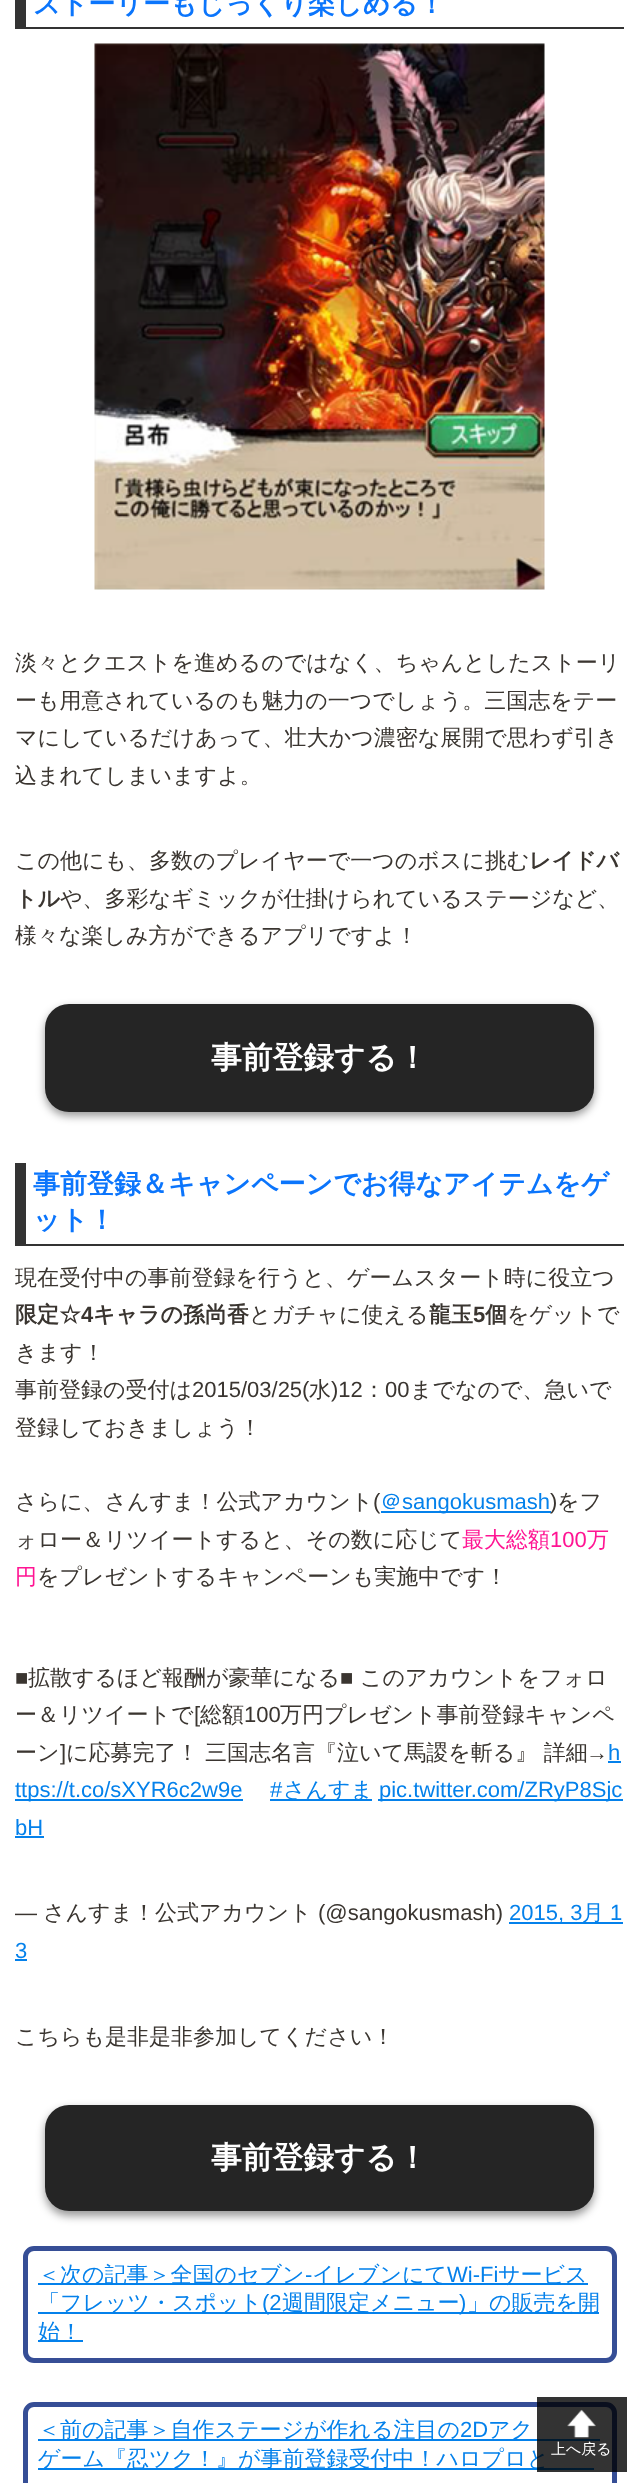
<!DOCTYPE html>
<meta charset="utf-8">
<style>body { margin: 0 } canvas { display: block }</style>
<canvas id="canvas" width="638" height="2483"></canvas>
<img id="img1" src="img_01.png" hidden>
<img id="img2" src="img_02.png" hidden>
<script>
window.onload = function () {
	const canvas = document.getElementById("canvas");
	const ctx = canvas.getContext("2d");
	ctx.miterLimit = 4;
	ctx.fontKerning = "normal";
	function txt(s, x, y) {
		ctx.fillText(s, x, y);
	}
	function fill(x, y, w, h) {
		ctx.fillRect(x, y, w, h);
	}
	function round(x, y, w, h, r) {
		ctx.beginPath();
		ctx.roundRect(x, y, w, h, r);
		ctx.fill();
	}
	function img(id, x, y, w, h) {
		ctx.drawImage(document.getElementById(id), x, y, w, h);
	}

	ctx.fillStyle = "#FFFFFF";
	fill(0, 0, 638, 2483);
	ctx.fillStyle = "#333333";
	fill(26, 27, 598, 2);
	fill(15, 0, 11, 29);
	img("img1", 94, 43, 451, 547);
	ctx.fillStyle = "rgba(0, 0, 0, 0.4)";
	ctx.filter = "blur(4.5px)";
	ctx.beginPath();
	ctx.roundRect(45, 1008, 549, 108, 24);
	ctx.fill();
	ctx.filter = "none";
	ctx.fillStyle = "#252525";
	round(45, 1004, 549, 108, 24);
	ctx.fillStyle = "#333333";
	fill(15, 1244, 609, 2);
	fill(15, 1163, 11, 81);
	ctx.fillStyle = "#0481EB";
	fill(381, 1511, 170, 2);
	fill(608, 1761, 13, 2);
	fill(15, 1799, 228, 2);
	fill(270, 1799, 102, 2);
	fill(378, 1799, 245, 2);
	fill(15, 1836, 29, 2);
	fill(509, 1922, 114, 2);
	fill(15, 1959, 12, 2);
	ctx.fillStyle = "rgba(0, 0, 0, 0.4)";
	ctx.filter = "blur(4.5px)";
	ctx.beginPath();
	ctx.roundRect(45, 2109, 549, 107, 24);
	ctx.fill();
	ctx.filter = "none";
	ctx.fillStyle = "#252525";
	round(45, 2105, 549, 106, 24);
	ctx.beginPath();
	ctx.roundRect(25.5, 2248.5, 589, 112, 8.5);
	ctx.strokeStyle = "#364E96";
	ctx.lineWidth = 5;
	ctx.stroke();
	ctx.fillStyle = "#0481EB";
	fill(38, 2283, 550, 2);
	fill(38, 2312, 561, 2);
	fill(38, 2340, 45, 2);
	ctx.beginPath();
	ctx.roundRect(25.5, 2404.5, 589, 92, 8.5);
	ctx.stroke();
	fill(38, 2439, 562, 2);
	fill(38, 2468, 556, 2);
	ctx.font = "bold 27px WenQuanYi Zen Hei";
	ctx.fillStyle = "#0B75FC";
	txt("ストーリーもじっくり楽しめる！", 33, 13);
	ctx.font = "500 22px WenQuanYi Zen Hei";
	ctx.fillStyle = "#3A3530";
	txt("淡々とクエストを進めるのではなく、ちゃんとしたストーリ", 15, 670);
	txt("ーも用意されているのも魅力の一つでしょう。三国志をテー", 15, 708);
	txt("マにしているだけあって、壮大かつ濃密な展開で思わず引き", 15, 745);
	txt("込まれてしまいますよ。", 15, 783);
	txt("この他にも、多数のプレイヤーで一つのボスに挑む", 15, 868);
	ctx.font = "bold 22px WenQuanYi Zen Hei";
	txt("レイドバ", 529, 868);
	txt("トル", 15, 906);
	ctx.font = "500 22px WenQuanYi Zen Hei";
	txt("や、多彩なギミックが仕掛けられているステージなど、", 60, 906);
	txt("様々な楽しみ方ができるアプリですよ！", 15, 943);
	ctx.font = "bold 30.75px WenQuanYi Zen Hei";
	ctx.fillStyle = "#FFFFFF";
	txt("事前登録する！", 211, 1068);
	ctx.font = "bold 27px WenQuanYi Zen Hei";
	ctx.fillStyle = "#0B75FC";
	txt("事前登録＆キャンペーンでお得なアイテムをゲ", 33, 1193);
	txt("ット！", 33, 1229);
	ctx.font = "500 22px WenQuanYi Zen Hei";
	ctx.fillStyle = "#3A3530";
	txt("現在受付中の事前登録を行うと、ゲームスタート時に役立つ", 15, 1285);
	ctx.font = "bold 22px WenQuanYi Zen Hei";
	txt("限定☆", 15, 1322);
	ctx.font = "bold 22px Liberation Sans";
	txt("4", 81, 1322);
	ctx.font = "bold 22px WenQuanYi Zen Hei";
	txt("キャラの孫尚香", 93, 1322);
	ctx.font = "500 22px WenQuanYi Zen Hei";
	txt("とガチャに使える", 249, 1322);
	ctx.font = "bold 22px WenQuanYi Zen Hei";
	txt("龍玉", 429, 1322);
	ctx.font = "bold 22px Liberation Sans";
	txt("5", 473, 1322);
	ctx.font = "bold 22px WenQuanYi Zen Hei";
	txt("個", 485, 1322);
	ctx.font = "500 22px WenQuanYi Zen Hei";
	txt("をゲットで", 507, 1322);
	txt("きます！", 15, 1360);
	txt("事前登録の受付は", 15, 1397);
	ctx.font = "22px Liberation Sans";
	txt("2015/03/25(", 192, 1397);
	ctx.font = "500 22px WenQuanYi Zen Hei";
	txt("水", 309, 1397);
	ctx.font = "22px Liberation Sans";
	txt(")12", 331, 1397);
	ctx.font = "500 22px WenQuanYi Zen Hei";
	txt("：", 363, 1397);
	ctx.font = "22px Liberation Sans";
	txt("00", 385, 1397);
	ctx.font = "500 22px WenQuanYi Zen Hei";
	txt("までなので、急いで", 410, 1397);
	txt("登録しておきましょう！", 15, 1435);
	txt("さらに、さんすま！公式アカウント", 15, 1509);
	ctx.font = "22px Liberation Sans";
	txt("(", 373, 1509);
	ctx.font = "500 22px WenQuanYi Zen Hei";
	ctx.fillStyle = "#0481EB";
	txt("＠", 380, 1509);
	ctx.font = "22px Liberation Sans";
	txt("sangokusmash", 402, 1509);
	ctx.fillStyle = "#3A3530";
	txt(")", 550, 1509);
	ctx.font = "500 22px WenQuanYi Zen Hei";
	txt("をフ", 557, 1509);
	txt("ォロー＆リツイートすると、その数に応じて", 15, 1547);
	ctx.fillStyle = "#FF1493";
	txt("最大総額", 462, 1547);
	ctx.font = "22px Liberation Sans";
	txt("100", 550, 1547);
	ctx.font = "500 22px WenQuanYi Zen Hei";
	txt("万", 587, 1547);
	txt("円", 15, 1584);
	ctx.fillStyle = "#3A3530";
	txt("をプレゼントするキャンペーンも実施中です！", 37, 1584);
	ctx.font = "22px Liberation Sans";
	txt("■", 15, 1685);
	ctx.font = "500 22px WenQuanYi Zen Hei";
	txt("拡散するほど報酬が豪華になる", 28, 1685);
	ctx.font = "22px Liberation Sans";
	txt("■", 340, 1685);
	ctx.font = "500 22px WenQuanYi Zen Hei";
	txt("このアカウントをフォロ", 360, 1685);
	txt("ー＆リツイートで", 15, 1722);
	ctx.font = "22px Liberation Sans";
	txt("[", 194, 1722);
	ctx.font = "500 22px WenQuanYi Zen Hei";
	txt("総額", 200, 1722);
	ctx.font = "22px Liberation Sans";
	txt("100", 244, 1722);
	ctx.font = "500 22px WenQuanYi Zen Hei";
	txt("万円プレゼント事前登録キャンペ", 280, 1722);
	txt("ーン", 15, 1760);
	ctx.font = "22px Liberation Sans";
	txt("]", 60, 1760);
	ctx.font = "500 22px WenQuanYi Zen Hei";
	txt("に応募完了！ 三国志名言『泣いて馬謖を斬る』 詳細", 66, 1760);
	ctx.font = "22px Liberation Sans";
	txt("→", 586, 1760);
	ctx.fillStyle = "#0481EB";
	txt("h", 608, 1760);
	txt("ttps://t.co/sXYR6c2w9e", 15, 1797);
	txt("#", 270, 1797);
	ctx.font = "500 22px WenQuanYi Zen Hei";
	txt("さんすま", 283, 1797);
	ctx.font = "22px Liberation Sans";
	txt("pic.twitter.com/ZRyP8Sjc", 379, 1797);
	txt("bH", 15, 1835);
	ctx.fillStyle = "#3A3530";
	txt("—", 15, 1920);
	ctx.font = "500 22px WenQuanYi Zen Hei";
	txt("さんすま！公式アカウント", 43, 1920);
	ctx.font = "22px Liberation Sans";
	txt("(@sangokusmash)", 318, 1920);
	ctx.fillStyle = "#0481EB";
	txt("2015, 3", 509, 1920);
	ctx.font = "500 22px WenQuanYi Zen Hei";
	txt("月", 582, 1920);
	ctx.font = "22px Liberation Sans";
	txt("1", 610, 1920);
	txt("3", 15, 1958);
	ctx.font = "500 22px WenQuanYi Zen Hei";
	ctx.fillStyle = "#3A3530";
	txt("こちらも是非是非参加してください！", 15, 2044);
	ctx.font = "bold 30.75px WenQuanYi Zen Hei";
	ctx.fillStyle = "#FFFFFF";
	txt("事前登録する！", 211, 2168);
	ctx.font = "500 22px WenQuanYi Zen Hei";
	ctx.fillStyle = "#0481EB";
	txt("＜次の記事＞全国のセブン", 38, 2282);
	ctx.font = "22px Liberation Sans";
	txt("-", 305, 2282);
	ctx.font = "500 22px WenQuanYi Zen Hei";
	txt("イレブンにて", 312, 2282);
	ctx.font = "22px Liberation Sans";
	txt("Wi-Fi", 447, 2282);
	ctx.font = "500 22px WenQuanYi Zen Hei";
	txt("サービス", 498, 2282);
	txt("「フレッツ・スポット", 38, 2310);
	ctx.font = "22px Liberation Sans";
	txt("(2", 262, 2310);
	ctx.font = "500 22px WenQuanYi Zen Hei";
	txt("週間限定メニュー", 282, 2310);
	ctx.font = "22px Liberation Sans";
	txt(")", 459, 2310);
	ctx.font = "500 22px WenQuanYi Zen Hei";
	txt("」の販売を開", 467, 2310);
	txt("始！", 38, 2339);
	txt("＜前の記事＞自作ステージが作れる注目の", 38, 2437);
	ctx.font = "22px Liberation Sans";
	txt("2D", 460, 2437);
	ctx.font = "500 22px WenQuanYi Zen Hei";
	txt("アク", 488, 2437);
	txt("ゲーム『忍ツク！』が事前登録受付中！ハロプロと", 38, 2466);
	ctx.fillStyle = "rgba(0, 0, 0, 0.8)";
	fill(537, 2397, 90, 75);
	img("img2", 567, 2409, 29, 29);
	ctx.font = "500 15px WenQuanYi Zen Hei";
	ctx.fillStyle = "#FFFFFF";
	txt("上へ戻る", 551, 2454);
};
</script>
